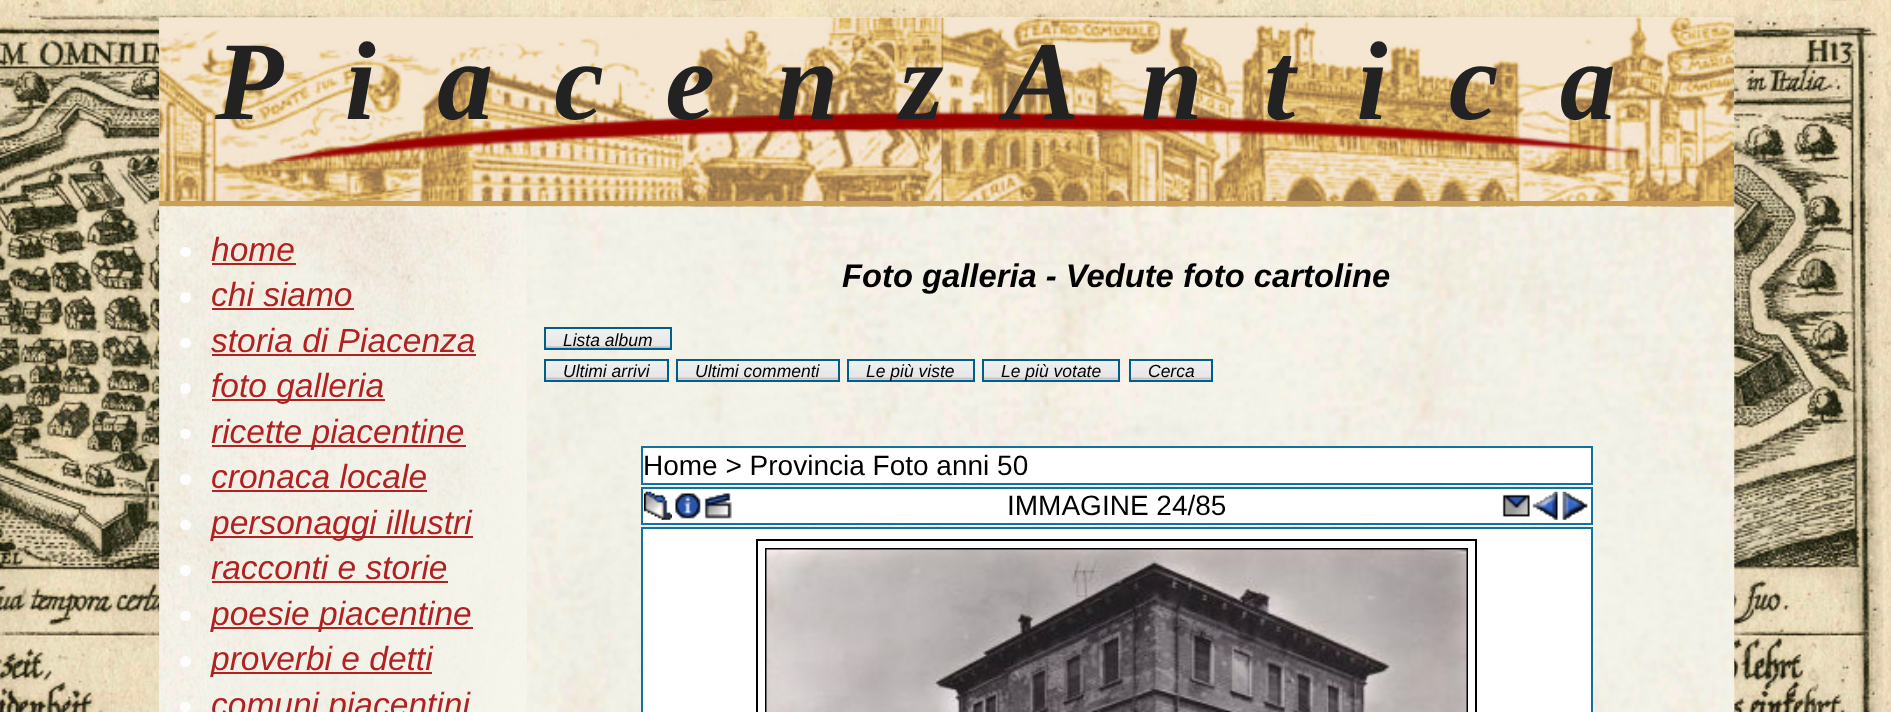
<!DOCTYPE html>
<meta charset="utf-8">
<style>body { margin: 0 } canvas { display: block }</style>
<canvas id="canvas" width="1891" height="712"></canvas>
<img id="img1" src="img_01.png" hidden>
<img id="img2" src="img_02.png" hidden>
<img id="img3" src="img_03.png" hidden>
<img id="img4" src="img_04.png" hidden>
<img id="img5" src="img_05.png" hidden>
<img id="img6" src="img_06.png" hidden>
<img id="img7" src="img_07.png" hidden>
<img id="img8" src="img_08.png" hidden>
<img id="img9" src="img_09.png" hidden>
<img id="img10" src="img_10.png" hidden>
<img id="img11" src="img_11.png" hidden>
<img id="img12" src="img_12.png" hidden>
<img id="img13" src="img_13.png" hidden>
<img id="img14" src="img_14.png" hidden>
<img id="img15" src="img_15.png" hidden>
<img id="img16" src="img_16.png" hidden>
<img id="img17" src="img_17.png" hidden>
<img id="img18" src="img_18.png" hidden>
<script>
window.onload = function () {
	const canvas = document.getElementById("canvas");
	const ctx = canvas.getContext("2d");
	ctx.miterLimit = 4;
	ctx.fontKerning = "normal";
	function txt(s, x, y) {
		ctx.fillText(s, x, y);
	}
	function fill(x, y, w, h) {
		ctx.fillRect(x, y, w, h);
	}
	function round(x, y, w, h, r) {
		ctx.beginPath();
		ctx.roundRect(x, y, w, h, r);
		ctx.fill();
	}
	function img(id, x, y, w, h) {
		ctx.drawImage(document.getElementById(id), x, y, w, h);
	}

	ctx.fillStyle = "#FFFFFF";
	fill(0, 0, 1891, 712);
	img("img1", 0, 0, 1891, 712);
	img("img2", 159, 17, 1576, 695);
	img("img3", 159, 17, 1576, 190);
	ctx.fillStyle = "#CA9F58";
	fill(159, 201, 1575, 5);
	img("img4", 269, 110, 1377, 51);
	img("img5", 159, 206, 368, 506);
	ctx.fillStyle = "#FDFDFD";
	round(180, 247, 11, 10, 5);
	ctx.fillStyle = "#B02121";
	fill(212, 263, 84, 2);
	ctx.fillStyle = "#FDFDFD";
	ctx.beginPath();
	ctx.arc(185.5, 297.5, 5.5, 0, Math.PI * 2);
	ctx.fill();
	ctx.fillStyle = "#B02121";
	fill(212, 308, 142, 2);
	ctx.fillStyle = "#FDFDFD";
	round(180, 338, 11, 10, 5);
	ctx.fillStyle = "#B02121";
	fill(212, 354, 264, 2);
	ctx.fillStyle = "#FDFDFD";
	ctx.beginPath();
	ctx.arc(185.5, 388.5, 5.5, 0, Math.PI * 2);
	ctx.fill();
	ctx.fillStyle = "#B02121";
	fill(212, 399, 173, 2);
	ctx.fillStyle = "#FDFDFD";
	round(180, 429, 11, 10, 5);
	ctx.fillStyle = "#B02121";
	fill(212, 445, 254, 2);
	ctx.fillStyle = "#FDFDFD";
	ctx.beginPath();
	ctx.arc(185.5, 479.5, 5.5, 0, Math.PI * 2);
	ctx.fill();
	ctx.fillStyle = "#B02121";
	fill(212, 490, 215, 2);
	ctx.fillStyle = "#FDFDFD";
	round(180, 520, 11, 10, 5);
	ctx.fillStyle = "#B02121";
	fill(212, 536, 261, 2);
	ctx.fillStyle = "#FDFDFD";
	ctx.beginPath();
	ctx.arc(185.5, 570.5, 5.5, 0, Math.PI * 2);
	ctx.fill();
	ctx.fillStyle = "#B02121";
	fill(212, 581, 236, 2);
	ctx.fillStyle = "#FDFDFD";
	round(180, 611, 11, 10, 5);
	ctx.fillStyle = "#B02121";
	fill(212, 627, 261, 2);
	ctx.fillStyle = "#FDFDFD";
	ctx.beginPath();
	ctx.arc(185.5, 661.5, 5.5, 0, Math.PI * 2);
	ctx.fill();
	ctx.fillStyle = "#B02121";
	fill(212, 672, 220, 2);
	ctx.fillStyle = "#FDFDFD";
	round(180, 702, 11, 10, 5);
	img("img6", 546, 329, 124, 19);
	ctx.strokeStyle = "#005D8C";
	ctx.lineWidth = 2;
	ctx.strokeRect(545, 328, 126, 21);
	img("img7", 544, 358, 125, 22);
	img("img8", 675, 359, 163, 23);
	img("img9", 847, 358, 128, 22);
	img("img10", 981, 358, 139, 24);
	img("img11", 1128, 359, 83, 23);
	ctx.strokeRect(545, 360, 123, 21);
	ctx.strokeRect(677, 360, 162, 21);
	ctx.strokeRect(848, 360, 126, 21);
	ctx.strokeRect(983, 360, 136, 21);
	ctx.strokeRect(1130, 360, 82, 21);
	ctx.fillStyle = "#FFFFFF";
	ctx.beginPath();
	ctx.rect(642, 447, 950, 37);
	ctx.fill();
	ctx.strokeStyle = "#0E72A4";
	ctx.stroke();
	ctx.beginPath();
	ctx.rect(642, 488, 950, 36);
	ctx.fill();
	ctx.stroke();
	img("img12", 644, 491, 28, 29);
	img("img13", 675, 493, 26, 26);
	img("img14", 704, 493, 28, 26);
	img("img15", 1502, 494, 28, 23);
	img("img16", 1532, 491, 26, 29);
	img("img17", 1562, 491, 26, 29);
	ctx.beginPath();
	ctx.rect(642, 528, 950, 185);
	ctx.fill();
	ctx.stroke();
	ctx.strokeStyle = "#000000";
	ctx.strokeRect(757, 540, 719, 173);
	ctx.strokeRect(766, 549, 701, 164);
	img("img18", 766, 549, 701, 163);
	ctx.letterSpacing = "61.25px";
	ctx.font = "italic bold 112px Liberation Serif";
	ctx.fillStyle = "#222222";
	txt("PiacenzAntica", 215, 119);
	ctx.letterSpacing = "0px";
	ctx.font = "italic 33.5px Liberation Sans";
	ctx.fillStyle = "#B02121";
	txt("home", 211, 261);
	txt("chi siamo", 211, 306);
	txt("storia di Piacenza", 211, 352);
	txt("foto galleria", 211, 397);
	txt("ricette piacentine", 211, 443);
	txt("cronaca locale", 211, 488);
	txt("personaggi illustri", 211, 534);
	txt("racconti e storie", 211, 579);
	txt("poesie piacentine", 211, 625);
	txt("proverbi e detti", 211, 670);
	txt("comuni piacentini", 211, 716);
	ctx.font = "italic bold 32.75px Liberation Sans";
	ctx.fillStyle = "#000000";
	txt("Foto galleria - Vedute foto cartoline", 842, 287);
	ctx.font = "italic 17.5px Liberation Sans";
	txt("Lista album", 563, 346);
	txt("Ultimi arrivi", 563, 377);
	txt("Ultimi commenti", 695, 377);
	txt("Le più viste", 866, 377);
	txt("Le più votate", 1001, 377);
	txt("Cerca", 1148, 377);
	ctx.font = "28px Liberation Sans";
	txt("Home > Provincia Foto anni 50", 643, 475);
	txt("IMMAGINE 24/85", 1007, 515);
};
</script>
